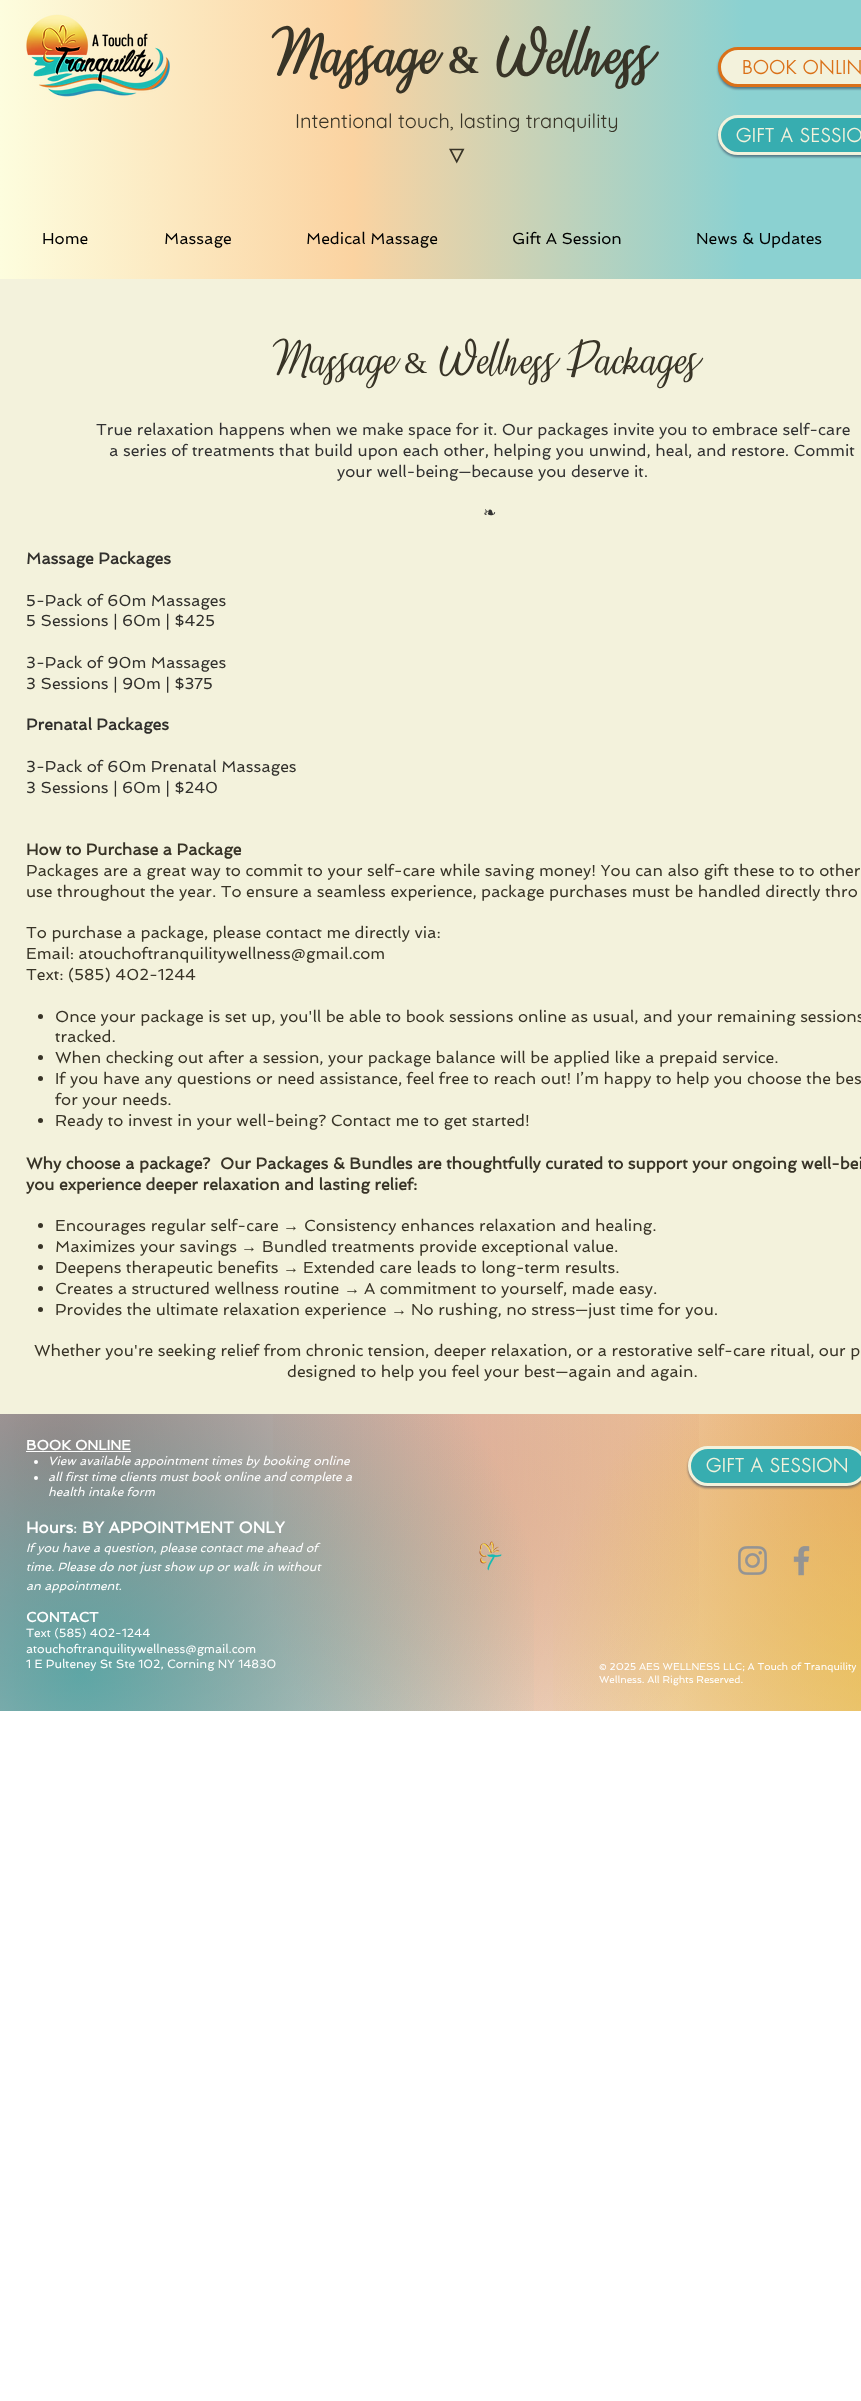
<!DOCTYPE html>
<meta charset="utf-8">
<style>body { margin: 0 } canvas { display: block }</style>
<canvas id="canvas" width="861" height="2401"></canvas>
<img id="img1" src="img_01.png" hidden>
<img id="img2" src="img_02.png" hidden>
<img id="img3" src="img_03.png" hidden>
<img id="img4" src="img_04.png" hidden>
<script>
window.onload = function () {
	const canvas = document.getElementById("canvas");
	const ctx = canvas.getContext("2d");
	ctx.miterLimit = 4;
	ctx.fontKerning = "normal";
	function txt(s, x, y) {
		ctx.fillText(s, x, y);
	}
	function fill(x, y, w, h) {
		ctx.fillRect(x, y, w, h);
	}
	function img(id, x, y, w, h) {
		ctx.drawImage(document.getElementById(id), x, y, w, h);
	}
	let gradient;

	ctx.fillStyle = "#FFFFFF";
	fill(0, 0, 861, 2401);
	gradient = ctx.createLinearGradient(0, 140, 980, 139);
	gradient.addColorStop(0, "#FDFDDE");
	gradient.addColorStop(0.36, "#FBD3A1");
	gradient.addColorStop(0.76, "#8BD1D1");
	ctx.fillStyle = gradient;
	fill(0, 0, 861, 279);
	img("img1", 26, 14, 144, 83);
	ctx.fillStyle = "rgba(50, 65, 88, 0.62)";
	ctx.filter = "blur(1px)";
	ctx.beginPath();
	ctx.roundRect(718, 49, 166, 40, 20);
	ctx.fill();
	ctx.filter = "none";
	ctx.fillStyle = "#F3F2DC";
	ctx.beginPath();
	ctx.roundRect(719.5, 48.5, 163, 37, 18.5);
	ctx.fill();
	ctx.strokeStyle = "#DA7119";
	ctx.lineWidth = 3;
	ctx.stroke();
	ctx.fillStyle = "rgba(50, 65, 88, 0.62)";
	ctx.filter = "blur(1px)";
	ctx.beginPath();
	ctx.roundRect(718, 117, 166, 40, 20);
	ctx.fill();
	ctx.filter = "none";
	ctx.fillStyle = "#37ADB0";
	ctx.beginPath();
	ctx.roundRect(719.5, 116.5, 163, 37, 18.5);
	ctx.fill();
	ctx.strokeStyle = "#F3F2DC";
	ctx.stroke();
	ctx.fillStyle = "#F3F2DC";
	fill(0, 279, 861, 1135);
	ctx.fillStyle = "#383427";
	ctx.beginPath();
	ctx.arc(40.5, 1016.5, 2.5, 0, Math.PI * 2);
	ctx.fill();
	ctx.beginPath();
	ctx.arc(40.5, 1057.5, 2.5, 0, Math.PI * 2);
	ctx.fill();
	ctx.beginPath();
	ctx.arc(40.5, 1078.5, 2.5, 0, Math.PI * 2);
	ctx.fill();
	ctx.beginPath();
	ctx.arc(40.5, 1120.5, 2.5, 0, Math.PI * 2);
	ctx.fill();
	ctx.beginPath();
	ctx.arc(40.5, 1225.5, 2.5, 0, Math.PI * 2);
	ctx.fill();
	ctx.beginPath();
	ctx.arc(40.5, 1246.5, 2.5, 0, Math.PI * 2);
	ctx.fill();
	ctx.beginPath();
	ctx.arc(40.5, 1267.5, 2.5, 0, Math.PI * 2);
	ctx.fill();
	ctx.beginPath();
	ctx.arc(40.5, 1288.5, 2.5, 0, Math.PI * 2);
	ctx.fill();
	ctx.beginPath();
	ctx.arc(40.5, 1309.5, 2.5, 0, Math.PI * 2);
	ctx.fill();
	gradient = ctx.createRadialGradient(479, 1561, 0, 479, 1561, 523);
	gradient.addColorStop(0, "#F7F7E9");
	gradient.addColorStop(1, "#FFFFFF");
	ctx.fillStyle = gradient;
	fill(14, 1414, 847, 297);
	gradient = ctx.createRadialGradient(918, 1448, 0, 918, 1448, 955);
	gradient.addColorStop(0, "rgba(218, 113, 25, 0.65)");
	gradient.addColorStop(0.7, "rgba(218, 113, 25, 0)");
	ctx.fillStyle = gradient;
	fill(273, 1414, 588, 297);
	gradient = ctx.createRadialGradient(60, 1451, 0, 60, 1451, 956);
	gradient.addColorStop(0, "rgba(139, 0, 0, 0.5)");
	gradient.addColorStop(0.7, "rgba(139, 0, 0, 0)");
	ctx.fillStyle = gradient;
	fill(0, 1414, 699, 297);
	gradient = ctx.createRadialGradient(82, 1674, 0, 82, 1674, 935);
	gradient.addColorStop(0, "rgba(26, 164, 164, 0.64)");
	gradient.addColorStop(0.5, "rgba(26, 164, 164, 0)");
	ctx.fillStyle = gradient;
	fill(0, 1414, 534, 297);
	gradient = ctx.createRadialGradient(925, 1680, 0, 925, 1680, 962);
	gradient.addColorStop(0, "rgba(230, 192, 56, 0.65)");
	gradient.addColorStop(0.4, "rgba(230, 192, 56, 0)");
	ctx.fillStyle = gradient;
	fill(553, 1414, 308, 297);
	ctx.fillStyle = "#FFFFFF";
	fill(26, 1451, 105, 1);
	ctx.beginPath();
	ctx.arc(36, 1462, 2, 0, Math.PI * 2);
	ctx.fill();
	ctx.beginPath();
	ctx.arc(36, 1478, 2, 0, Math.PI * 2);
	ctx.fill();
	ctx.fillStyle = "rgba(50, 65, 88, 0.62)";
	ctx.filter = "blur(1px)";
	ctx.beginPath();
	ctx.roundRect(688, 1448, 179, 40, 20);
	ctx.fill();
	ctx.filter = "none";
	ctx.fillStyle = "#37ADB0";
	ctx.beginPath();
	ctx.roundRect(689.5, 1447.5, 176, 37, 18.5);
	ctx.fill();
	ctx.stroke();
	img("img2", 479, 1541, 23, 30);
	img("img3", 738, 1546, 29, 29);
	img("img4", 793, 1546, 17, 30);
	ctx.font = "bold 40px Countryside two";
	ctx.fillStyle = "#383427";
	txt("Massage", 264, 73);
	ctx.font = "bold 40px Liberation Serif";
	txt("&", 447, 73);
	ctx.font = "bold 40px Countryside two";
	txt("Wellness", 493, 73);
	ctx.letterSpacing = "0.9px";
	ctx.font = "bold 18px futura";
	ctx.fillStyle = "#DA7119";
	txt("BOOK ONLIN", 742, 74);
	ctx.letterSpacing = "0px";
	ctx.font = "20px Quicksand";
	ctx.fillStyle = "#383427";
	txt("Intentional touch, lasting tranquility", 295, 128);
	ctx.font = "20px Noto Sans Symbols";
	txt("🜄", 448, 163);
	ctx.letterSpacing = "0.9px";
	ctx.font = "bold 18px futura";
	ctx.fillStyle = "#F3F2DC";
	txt("GIFT A SESSIO", 736, 142);
	ctx.letterSpacing = "0px";
	ctx.font = "16px Spinnaker";
	ctx.fillStyle = "#000000";
	txt("Home", 42, 244);
	txt("Massage", 164, 244);
	txt("Medical Massage", 306, 244);
	txt("Gift A Session", 512, 244);
	txt("News & Updates", 696, 244);
	ctx.font = "30px Countryside two";
	ctx.fillStyle = "#383427";
	txt("Massage", 267, 373);
	ctx.font = "30px Liberation Serif";
	txt("&", 404, 373);
	ctx.font = "30px Countryside two";
	txt("Wellness Packages", 437, 373);
	ctx.font = "16px Spinnaker";
	ctx.fillStyle = "#323232";
	txt("True relaxation happens when we make space for it. Our packages invite you to embrace self-care", 96, 435);
	txt("a series of treatments that build upon each other, helping you unwind, heal, and restore. Commit", 109, 456);
	txt("your well-being—because you deserve it.", 337, 477);
	ctx.font = "16px DejaVu Sans";
	txt("❧", 483, 518);
	ctx.font = "bold 16px Spinnaker";
	ctx.fillStyle = "#31302C";
	txt("Massage Packages", 26, 564);
	ctx.font = "16px Spinnaker";
	txt("5-Pack of 60m Massages", 26, 606);
	txt("5 Sessions | 60m | $425", 26, 626);
	txt("3-Pack of 90m Massages", 26, 668);
	txt("3 Sessions | 90m | $375", 26, 689);
	ctx.font = "bold 16px Spinnaker";
	txt("Prenatal Packages", 26, 730);
	ctx.font = "16px Spinnaker";
	txt("3-Pack of 60m Prenatal Massages", 26, 772);
	txt("3 Sessions | 60m | $240", 26, 793);
	ctx.font = "bold 16px Spinnaker";
	ctx.fillStyle = "#383427";
	txt("How to Purchase a Package", 26, 855);
	ctx.font = "16px Spinnaker";
	txt("Packages are a great way to commit to your self-care while saving money! You can also gift these to to other", 26, 876);
	txt("use throughout the year. To ensure a seamless experience, package purchases must be handled directly thro", 26, 897);
	txt("To purchase a package, please contact me directly via:", 26, 938);
	txt("Email: atouchoftranquilitywellness@gmail.com", 26, 959);
	txt("Text: (585) 402-1244", 26, 980);
	txt("Once your package is set up, you'll be able to book sessions online as usual, and your remaining sessions", 55, 1022);
	txt("tracked.", 55, 1042);
	txt("When checking out after a session, your package balance will be applied like a prepaid service.", 55, 1063);
	txt("If you have any questions or need assistance, feel free to reach out! I’m happy to help you choose the bes", 55, 1084);
	txt("for your needs.", 55, 1105);
	txt("Ready to invest in your well-being? Contact me to get started!", 55, 1126);
	ctx.font = "bold 16px Spinnaker";
	txt("Why choose a package?", 26, 1169);
	txt("Our Packages & Bundles are thoughtfully curated to support your ongoing well-bei", 220, 1169);
	txt("you experience deeper relaxation and lasting relief:", 26, 1190);
	ctx.font = "16px Spinnaker";
	txt("Encourages regular self-care", 55, 1231);
	ctx.font = "16px Liberation Sans";
	txt("→", 283, 1231);
	ctx.font = "16px Spinnaker";
	txt("Consistency enhances relaxation and healing.", 304, 1231);
	txt("Maximizes your savings", 55, 1252);
	ctx.font = "16px Liberation Sans";
	txt("→", 241, 1252);
	ctx.font = "16px Spinnaker";
	txt("Bundled treatments provide exceptional value.", 262, 1252);
	txt("Deepens therapeutic benefits", 55, 1273);
	ctx.font = "16px Liberation Sans";
	txt("→", 283, 1273);
	ctx.font = "16px Spinnaker";
	txt("Extended care leads to long-term results.", 303, 1273);
	txt("Creates a structured wellness routine", 55, 1294);
	ctx.font = "16px Liberation Sans";
	txt("→", 344, 1294);
	ctx.font = "16px Spinnaker";
	txt("A commitment to yourself, made easy.", 364, 1294);
	txt("Provides the ultimate relaxation experience", 55, 1315);
	ctx.font = "16px Liberation Sans";
	txt("→", 391, 1315);
	ctx.font = "16px Spinnaker";
	txt("No rushing, no stress—just time for you.", 411, 1315);
	txt("Whether you're seeking relief from chronic tension, deeper relaxation, or a restorative self-care ritual, our p", 34, 1356);
	txt("designed to help you feel your best—again and again.", 287, 1377);
	ctx.font = "bold 14px Spinnaker";
	ctx.fillStyle = "#FFFFFF";
	txt("BOOK ONLINE", 26, 1450);
	ctx.font = "italic 12px Spinnaker";
	txt("View available appointment times by booking online", 48, 1465);
	txt("all first time clients must book online and complete a", 48, 1481);
	txt("health intake form", 48, 1496);
	ctx.letterSpacing = "0.9px";
	ctx.font = "bold 18px futura";
	ctx.fillStyle = "#F3F2DC";
	txt("GIFT A SESSION", 706, 1472);
	ctx.letterSpacing = "0px";
	ctx.font = "bold 16px Spinnaker";
	ctx.fillStyle = "#FFFFFF";
	txt("Hours", 26, 1533);
	ctx.font = "16px Spinnaker";
	txt(":", 73, 1533);
	ctx.font = "bold 16px Spinnaker";
	txt("BY APPOINTMENT ONLY", 82, 1533);
	ctx.font = "italic 12px Spinnaker";
	txt("If you have a question, please contact me ahead of", 26, 1552);
	txt("time. Please do not just show up or walk in without", 26, 1571);
	txt("an appointment.", 26, 1590);
	ctx.font = "bold 14px Spinnaker";
	txt("CONTACT", 26, 1622);
	ctx.font = "12px Spinnaker";
	txt("Text (585) 402-1244", 26, 1637);
	txt("atouchoftranquilitywellness@gmail.com", 26, 1653);
	txt("1 E Pulteney St Ste 102, Corning NY 14830", 26, 1668);
	ctx.font = "10px Spinnaker";
	txt("© 2025 AES WELLNESS LLC; A Touch of Tranquility", 599, 1670);
	txt("Wellness. All Rights Reserved.", 599, 1683);
};
</script>
